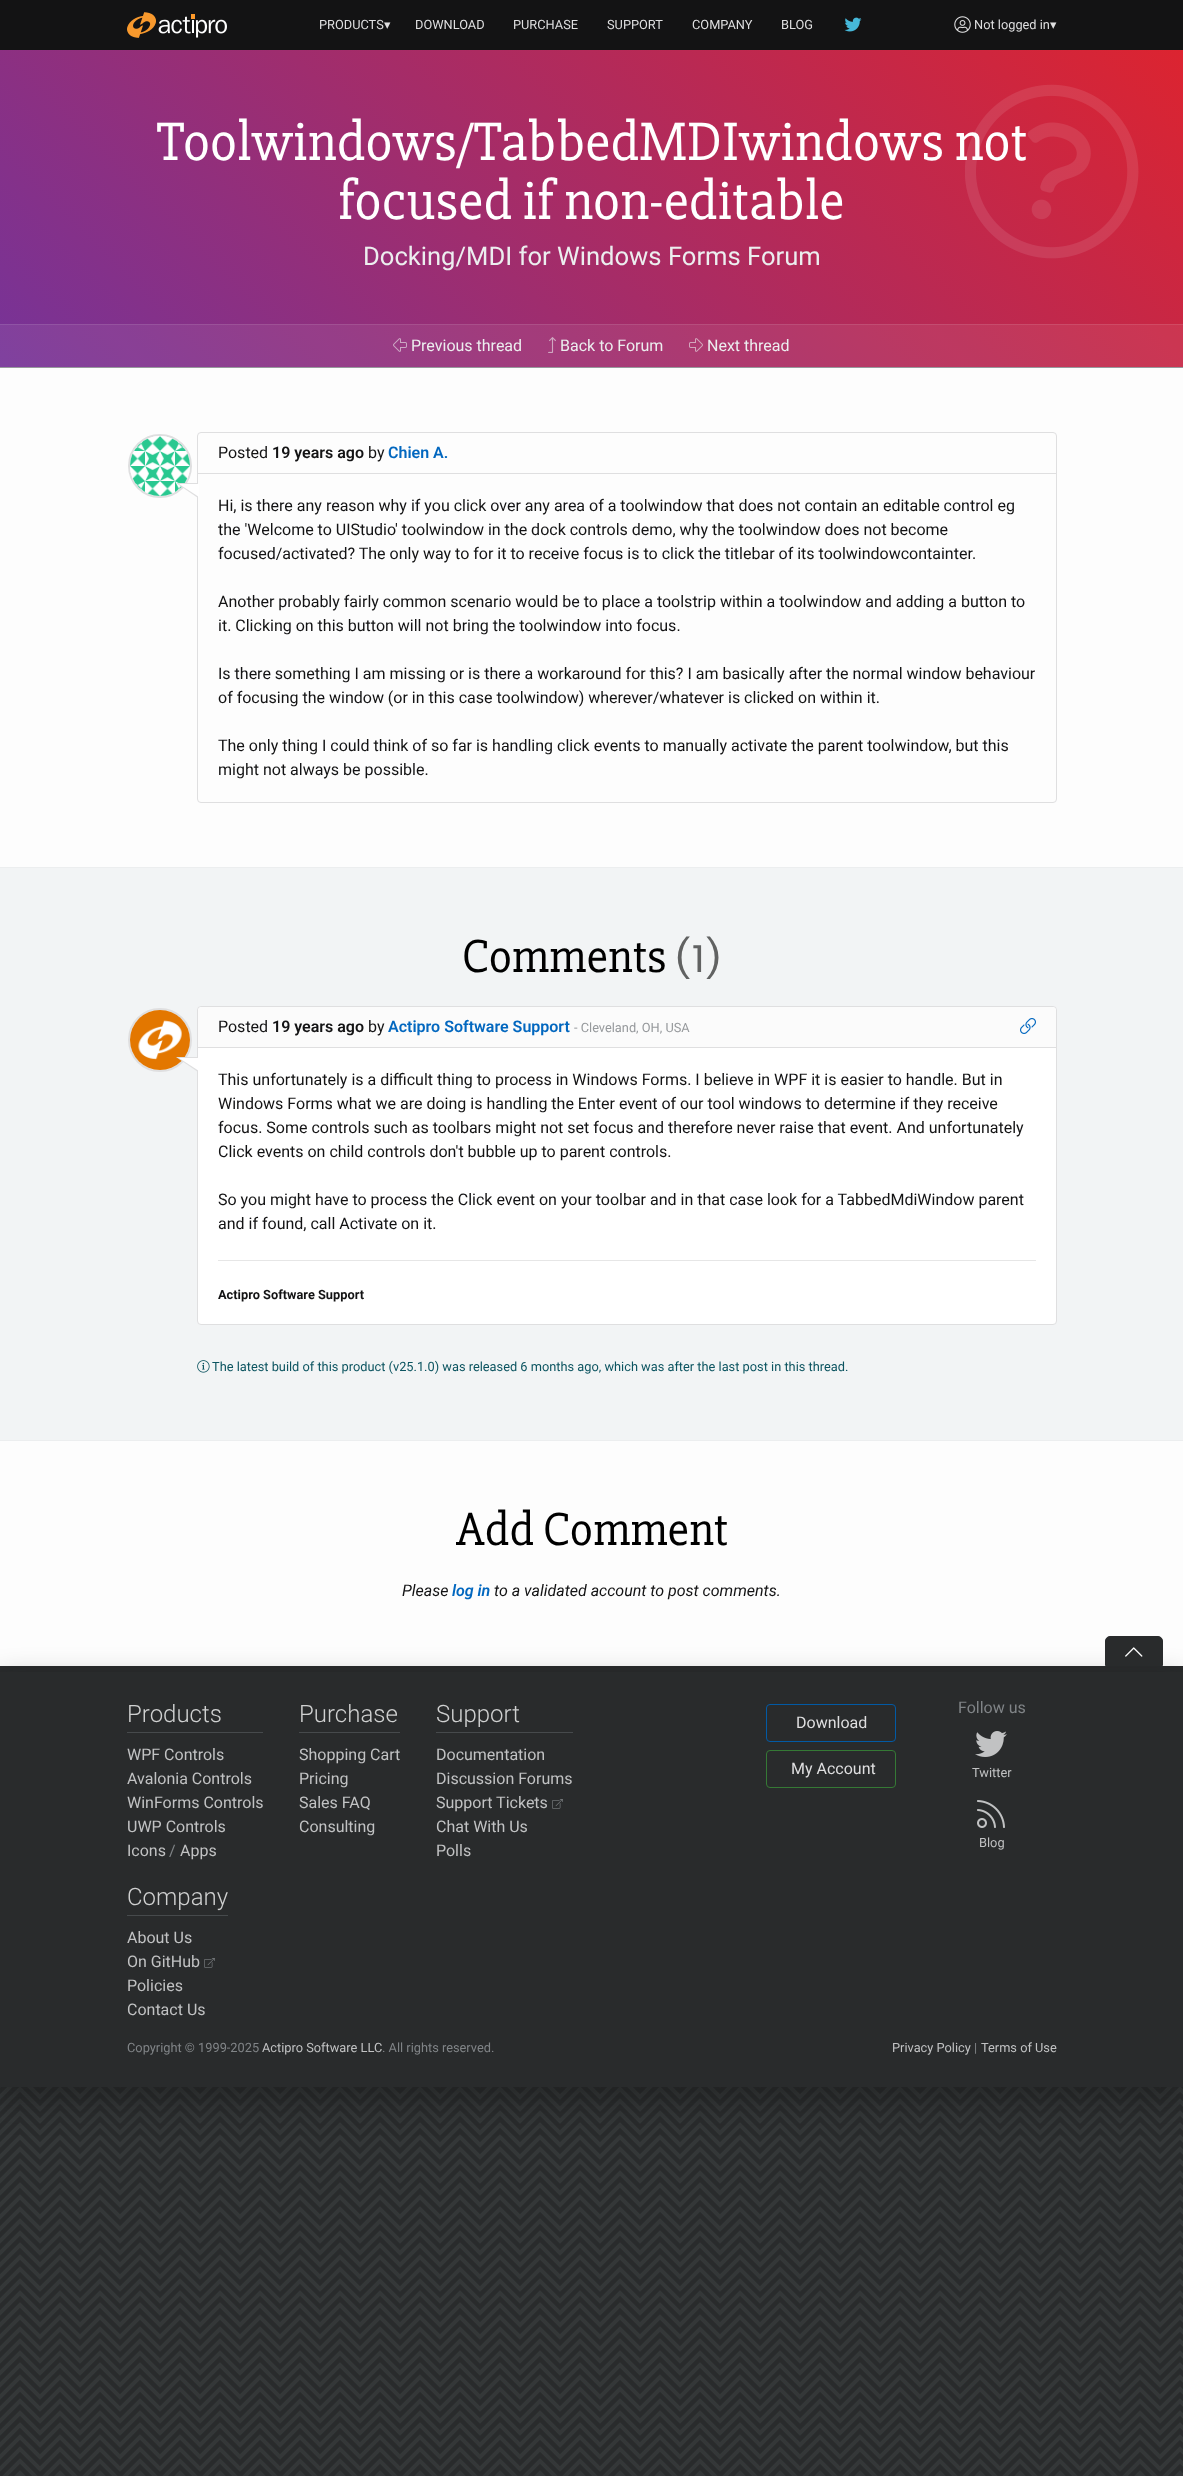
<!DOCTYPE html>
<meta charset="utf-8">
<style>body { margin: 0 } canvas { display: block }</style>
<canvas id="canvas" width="1183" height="2476"></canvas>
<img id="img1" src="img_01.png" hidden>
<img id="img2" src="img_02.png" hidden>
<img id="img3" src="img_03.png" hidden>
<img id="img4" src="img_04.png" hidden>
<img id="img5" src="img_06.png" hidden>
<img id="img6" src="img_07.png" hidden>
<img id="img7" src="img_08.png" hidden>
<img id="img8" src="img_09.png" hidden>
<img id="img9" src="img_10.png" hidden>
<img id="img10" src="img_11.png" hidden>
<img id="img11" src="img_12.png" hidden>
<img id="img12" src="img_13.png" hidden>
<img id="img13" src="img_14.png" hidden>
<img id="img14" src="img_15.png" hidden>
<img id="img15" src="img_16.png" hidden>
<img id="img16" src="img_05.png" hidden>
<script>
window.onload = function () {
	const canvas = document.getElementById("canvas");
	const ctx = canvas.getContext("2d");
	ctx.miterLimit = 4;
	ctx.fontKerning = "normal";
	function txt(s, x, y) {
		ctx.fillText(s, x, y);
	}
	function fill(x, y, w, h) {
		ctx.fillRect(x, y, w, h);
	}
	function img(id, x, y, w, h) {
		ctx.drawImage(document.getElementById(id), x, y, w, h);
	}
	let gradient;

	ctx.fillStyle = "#292B2C";
	fill(0, 0, 1183, 2476);
	img("img1", 0, 2087, 1183, 389);
	ctx.fillStyle = "#131314";
	fill(0, 0, 1183, 50);
	img("img2", 127, 12, 100, 26);
	img("img3", 844, 17, 18, 15);
	img("img4", 954, 16, 17, 17);
	gradient = ctx.createLinearGradient(217, 584, 967, -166);
	gradient.addColorStop(0, "#763398");
	gradient.addColorStop(1, "#DC2430");
	ctx.fillStyle = gradient;
	fill(0, 50, 1183, 317);
	ctx.fillStyle = "#96999C";
	fill(0, 367, 1183, 1);
	ctx.fillStyle = "rgba(255, 255, 255, 0.07)";
	fill(0, 324, 1183, 43);
	ctx.fillStyle = "rgba(255, 255, 255, 0.1)";
	fill(0, 324, 1183, 1);
	img("img5", 393, 338, 14, 14);
	img("img6", 548, 337, 8, 16);
	img("img7", 689, 338, 14, 14);
	ctx.fillStyle = "#FDFDFD";
	fill(0, 368, 1183, 499);
	ctx.beginPath();
	ctx.roundRect(197.5, 432.5, 859, 370, 3.5);
	ctx.strokeStyle = "#DFDFE0";
	ctx.stroke();
	ctx.fillStyle = "#DFDFE0";
	fill(198, 473, 858, 1);
	ctx.beginPath();
	ctx.arc(160, 466, 31, 0, Math.PI * 2);
	ctx.lineWidth = 2;
	ctx.stroke();
	img("img8", 130, 436, 60, 60);
	ctx.beginPath();
	ctx.moveTo(198, 483);
	ctx.lineTo(198, 498);
	ctx.lineTo(176, 483);
	ctx.closePath();
	ctx.fill();
	ctx.fillStyle = "#FFFFFF";
	ctx.beginPath();
	ctx.moveTo(199, 484);
	ctx.lineTo(199, 497);
	ctx.lineTo(179, 484);
	ctx.closePath();
	ctx.fill();
	ctx.fillStyle = "#F2F4F5";
	fill(0, 868, 1183, 572);
	ctx.fillStyle = "#ECEEEF";
	fill(0, 867, 1183, 1);
	fill(0, 1440, 1183, 1);
	ctx.fillStyle = "#FFFFFF";
	ctx.beginPath();
	ctx.roundRect(197.5, 1006.5, 859, 318, 3.5);
	ctx.fill();
	ctx.lineWidth = 1;
	ctx.stroke();
	ctx.fillStyle = "#FBFBFB";
	ctx.beginPath();
	ctx.roundRect(198, 1007, 858, 41, [4, 4, 0, 0]);
	ctx.fill();
	ctx.fillStyle = "#DFDFE0";
	fill(198, 1047, 858, 1);
	img("img9", 1020, 1018, 16, 16);
	ctx.beginPath();
	ctx.arc(160, 1040, 31, 0, Math.PI * 2);
	ctx.lineWidth = 2;
	ctx.stroke();
	img("img10", 130, 1010, 60, 60);
	ctx.beginPath();
	ctx.moveTo(198, 1057);
	ctx.lineTo(198, 1072);
	ctx.lineTo(176, 1057);
	ctx.closePath();
	ctx.fill();
	ctx.fillStyle = "#FFFFFF";
	ctx.beginPath();
	ctx.moveTo(199, 1058);
	ctx.lineTo(199, 1071);
	ctx.lineTo(179, 1058);
	ctx.closePath();
	ctx.fill();
	ctx.fillStyle = "#E6E6E6";
	fill(218, 1260, 818, 1);
	img("img11", 197, 1360, 13, 13);
	ctx.fillStyle = "#FDFDFD";
	fill(0, 1441, 1183, 225);
	ctx.fillStyle = "rgba(19, 19, 20, 0.4)";
	ctx.filter = "blur(15px)";
	ctx.beginPath();
	ctx.rect(0, 1681, 1183, 421);
	ctx.fill();
	ctx.filter = "none";
	ctx.fillStyle = "#292B2C";
	fill(0, 1672, 1183, 415);
	ctx.beginPath();
	ctx.roundRect(1105.5, 1636.5, 57, 29, [4.5, 4.5, 0, 0]);
	ctx.fill();
	ctx.strokeStyle = "#292B2C";
	ctx.lineWidth = 1;
	ctx.stroke();
	img("img12", 1125, 1647, 18, 10);
	ctx.fillStyle = "#464A4C";
	fill(127, 1732, 136, 1);
	fill(299, 1732, 101, 1);
	fill(436, 1732, 137, 1);
	img("img13", 552, 1799, 11, 10);
	fill(127, 1915, 101, 1);
	img("img13", 204, 1958, 11, 10);
	ctx.beginPath();
	ctx.roundRect(766.5, 1704.5, 129, 37, 3.5);
	ctx.strokeStyle = "#025AA5";
	ctx.stroke();
	ctx.beginPath();
	ctx.roundRect(766.5, 1750.5, 129, 37, 3.5);
	ctx.strokeStyle = "#357935";
	ctx.stroke();
	img("img14", 975, 1731, 32, 26);
	img("img15", 977, 1800, 28, 28);
	ctx.font = "12.8px Roboto";
	ctx.fillStyle = "#DFDFE0";
	txt("PRODUCTS", 319, 29);
	ctx.font = "12.8px DejaVu Sans";
	txt("▾", 384, 29);
	ctx.font = "12.8px Roboto";
	txt("DOWNLOAD", 415, 29);
	txt("PURCHASE", 513, 29);
	txt("SUPPORT", 607, 29);
	txt("COMPANY", 692, 29);
	txt("BLOG", 781, 29);
	txt("Not logged in", 974, 29);
	ctx.font = "12.8px DejaVu Sans";
	txt("▾", 1050, 29);
	ctx.font = "56px 'Slabo 27px'";
	ctx.fillStyle = "#FFFFFF";
	txt("Toolwindows/TabbedMDIwindows not", 156, 160);
	txt("focused if non-editable", 338, 219);
	ctx.font = "25.6px Roboto";
	ctx.fillStyle = "#ECEEEF";
	txt("Docking/MDI for Windows Forms Forum", 363, 265);
	img("img16", 965, 84, 174, 175);
	ctx.font = "16px Roboto";
	txt("Previous thread", 411, 351);
	txt("Back to Forum", 560, 351);
	txt("Next thread", 707, 351);
	ctx.fillStyle = "#131314";
	txt("Posted", 218, 458);
	ctx.font = "600 16px Roboto";
	txt("19 years ago", 272, 458);
	ctx.font = "16px Roboto";
	txt("by", 368, 458);
	ctx.font = "600 16px Roboto";
	ctx.fillStyle = "#0267BF";
	txt("Chien A.", 388, 458);
	ctx.font = "16px Roboto";
	ctx.fillStyle = "#131314";
	txt("Hi, is there any reason why if you click over any area of a toolwindow that does not contain an editable control eg", 218, 511);
	txt("the 'Welcome to UIStudio' toolwindow in the dock controls demo, why the toolwindow does not become", 218, 535);
	txt("focused/activated? The only way to for it to receive focus is to click the titlebar of its toolwindowcontainter.", 218, 559);
	txt("Another probably fairly common scenario would be to place a toolstrip within a toolwindow and adding a button to", 218, 607);
	txt("it. Clicking on this button will not bring the toolwindow into focus.", 218, 631);
	txt("Is there something I am missing or is there a workaround for this? I am basically after the normal window behaviour", 218, 679);
	txt("of focusing the window (or in this case toolwindow) wherever/whatever is clicked on within it.", 218, 703);
	txt("The only thing I could think of so far is handling click events to manually activate the parent toolwindow, but this", 218, 751);
	txt("might not always be possible.", 218, 775);
	ctx.font = "48px 'Slabo 27px'";
	ctx.fillStyle = "#000000";
	txt("Comments", 462, 972);
	ctx.fillStyle = "#616262";
	txt("(1)", 675, 972);
	ctx.font = "16px Roboto";
	ctx.fillStyle = "#131314";
	txt("Posted", 218, 1032);
	ctx.font = "600 16px Roboto";
	txt("19 years ago", 272, 1032);
	ctx.font = "16px Roboto";
	txt("by", 368, 1032);
	ctx.font = "600 16px Roboto";
	ctx.fillStyle = "#0267BF";
	txt("Actipro Software Support", 388, 1032);
	ctx.font = "12.8px Roboto";
	ctx.fillStyle = "#96999C";
	txt("- Cleveland, OH, USA", 574, 1032);
	ctx.font = "16px Roboto";
	ctx.fillStyle = "#131314";
	txt("This unfortunately is a difficult thing to process in Windows Forms. I believe in WPF it is easier to handle. But in", 218, 1085);
	txt("Windows Forms what we are doing is handling the Enter event of our tool windows to determine if they receive", 218, 1109);
	txt("focus. Some controls such as toolbars might not set focus and therefore never raise that event. And unfortunately", 218, 1133);
	txt("Click events on child controls don't bubble up to parent controls.", 218, 1157);
	txt("So you might have to process the Click event on your toolbar and in that case look for a TabbedMdiWindow parent", 218, 1205);
	txt("and if found, call Activate on it.", 218, 1229);
	ctx.font = "bold 12.8px Roboto";
	txt("Actipro Software Support", 218, 1299);
	ctx.font = "12.8px Roboto";
	ctx.fillStyle = "#0C5460";
	txt("The latest build of this product (v25.1.0) was released 6 months ago, which was after the last post in this thread.", 212, 1371);
	ctx.font = "48px 'Slabo 27px'";
	ctx.fillStyle = "#000000";
	txt("Add Comment", 456, 1545);
	ctx.font = "italic 16px Roboto";
	ctx.fillStyle = "#131314";
	txt("Please", 402, 1596);
	ctx.font = "italic 600 16px Roboto";
	ctx.fillStyle = "#0267BF";
	txt("log in", 452, 1596);
	ctx.font = "italic 16px Roboto";
	ctx.fillStyle = "#131314";
	txt("to a validated account to post comments.", 494, 1596);
	ctx.font = "300 24px Roboto";
	ctx.fillStyle = "#CFD0D0";
	txt("Products", 127, 1722);
	ctx.font = "16px Roboto";
	ctx.fillStyle = "#C1C2C3";
	txt("WPF Controls", 127, 1760);
	txt("Avalonia Controls", 127, 1784);
	txt("WinForms Controls", 127, 1808);
	txt("UWP Controls", 127, 1832);
	txt("Icons", 127, 1856);
	ctx.fillStyle = "#808487";
	txt("/", 169, 1856);
	ctx.fillStyle = "#C1C2C3";
	txt("Apps", 180, 1856);
	ctx.font = "300 24px Roboto";
	ctx.fillStyle = "#CFD0D0";
	txt("Purchase", 299, 1722);
	ctx.font = "16px Roboto";
	ctx.fillStyle = "#C1C2C3";
	txt("Shopping Cart", 299, 1760);
	txt("Pricing", 299, 1784);
	txt("Sales FAQ", 299, 1808);
	txt("Consulting", 299, 1832);
	ctx.font = "300 24px Roboto";
	ctx.fillStyle = "#CFD0D0";
	txt("Support", 436, 1722);
	ctx.font = "16px Roboto";
	ctx.fillStyle = "#C1C2C3";
	txt("Documentation", 436, 1760);
	txt("Discussion Forums", 436, 1784);
	txt("Support Tickets", 436, 1808);
	txt("Chat With Us", 436, 1832);
	txt("Polls", 436, 1856);
	ctx.font = "300 24px Roboto";
	ctx.fillStyle = "#CFD0D0";
	txt("Company", 127, 1905);
	ctx.font = "16px Roboto";
	ctx.fillStyle = "#C1C2C3";
	txt("About Us", 127, 1943);
	txt("On GitHub", 127, 1967);
	txt("Policies", 127, 1991);
	txt("Contact Us", 127, 2015);
	ctx.fillStyle = "#DFDFE0";
	txt("Download", 796, 1728);
	txt("My Account", 791, 1774);
	ctx.fillStyle = "#808487";
	txt("Follow us", 958, 1713);
	ctx.font = "12.8px Roboto";
	ctx.fillStyle = "#C1C2C3";
	txt("Twitter", 972, 1777);
	txt("Blog", 979, 1847);
	ctx.fillStyle = "#808487";
	txt("Copyright © 1999-2025", 127, 2052);
	ctx.fillStyle = "#C1C2C3";
	txt("Actipro Software LLC", 262, 2052);
	ctx.fillStyle = "#808487";
	txt(". All rights reserved.", 382, 2052);
	ctx.fillStyle = "#C1C2C3";
	txt("Privacy Policy", 892, 2052);
	ctx.fillStyle = "#808487";
	txt("|", 974, 2052);
	ctx.fillStyle = "#C1C2C3";
	txt("Terms of Use", 981, 2052);
};
</script>
